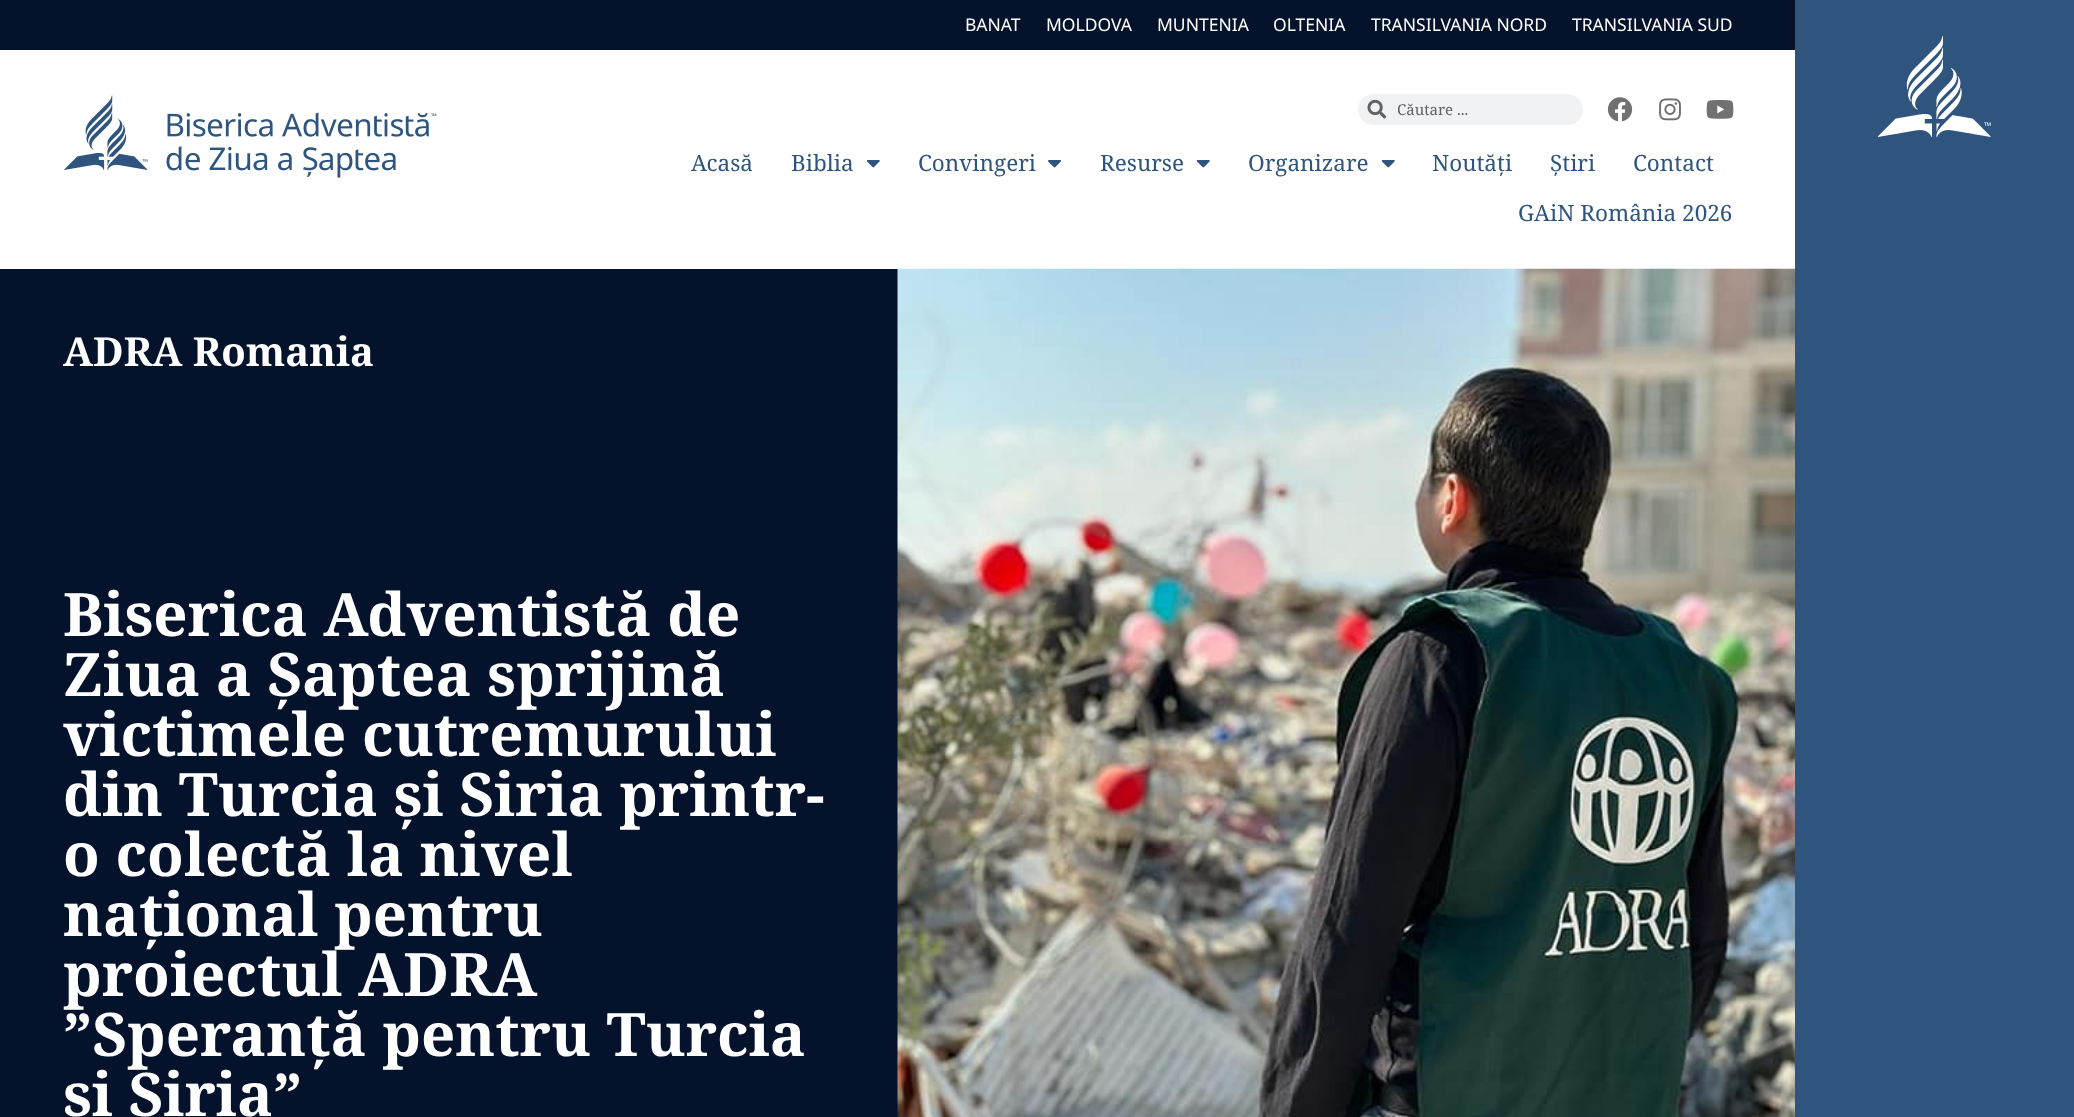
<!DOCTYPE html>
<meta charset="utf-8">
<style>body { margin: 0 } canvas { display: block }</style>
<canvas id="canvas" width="2074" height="1117"></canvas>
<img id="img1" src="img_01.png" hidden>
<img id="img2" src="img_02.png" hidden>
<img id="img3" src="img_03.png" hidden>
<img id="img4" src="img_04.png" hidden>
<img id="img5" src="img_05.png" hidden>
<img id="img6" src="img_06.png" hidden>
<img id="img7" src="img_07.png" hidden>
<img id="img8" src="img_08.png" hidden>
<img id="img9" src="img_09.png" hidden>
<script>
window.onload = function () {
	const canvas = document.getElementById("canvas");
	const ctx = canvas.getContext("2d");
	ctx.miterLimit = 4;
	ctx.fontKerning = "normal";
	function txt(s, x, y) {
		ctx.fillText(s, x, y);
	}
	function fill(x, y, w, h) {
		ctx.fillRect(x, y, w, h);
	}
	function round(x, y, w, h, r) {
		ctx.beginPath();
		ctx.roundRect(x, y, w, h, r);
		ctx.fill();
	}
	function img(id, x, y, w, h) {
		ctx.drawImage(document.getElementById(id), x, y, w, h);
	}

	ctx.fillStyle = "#FFFFFF";
	fill(0, 0, 2074, 1117);
	ctx.fillStyle = "#04132B";
	fill(0, 0, 1795, 50);
	ctx.fillStyle = "#2F557F";
	fill(1795, 0, 279, 1117);
	img("img1", 1877, 35, 114, 103);
	img("img2", 64, 95, 373, 83);
	ctx.fillStyle = "#F1F2F3";
	round(1358, 94, 225, 31, 15.5);
	img("img3", 1367, 99, 20, 20);
	img("img4", 1607, 97, 26, 25);
	img("img5", 1659, 98, 22, 23);
	img("img6", 1706, 100, 28, 19);
	img("img7", 866, 160, 14, 8);
	img("img8", 1048, 160, 13, 8);
	img("img7", 1196, 160, 14, 8);
	img("img7", 1381, 160, 14, 8);
	ctx.fillStyle = "#04132B";
	fill(0, 269, 898, 848);
	img("img9", 897, 268, 898, 849);
	ctx.font = "17.5px Noto Sans";
	ctx.fillStyle = "#FFFFFF";
	txt("BANAT", 965, 31);
	txt("MOLDOVA", 1046, 31);
	txt("MUNTENIA", 1157, 31);
	txt("OLTENIA", 1273, 31);
	txt("TRANSILVANIA NORD", 1371, 31);
	txt("TRANSILVANIA SUD", 1572, 31);
	ctx.save();
	ctx.beginPath();
	ctx.rect(1398, 99, 160, 21);
	ctx.clip();
	ctx.font = "15px Noto Serif";
	ctx.fillStyle = "#606161";
	txt("Căutare ...", 1397, 115);
	ctx.restore();
	ctx.font = "22.5px Noto Serif";
	ctx.fillStyle = "#2F557F";
	txt("Acasă", 691, 171);
	txt("Biblia", 791, 171);
	txt("Convingeri", 918, 171);
	txt("Resurse", 1100, 171);
	txt("Organizare", 1248, 171);
	txt("Noutăți", 1432, 171);
	txt("Știri", 1550, 171);
	txt("Contact", 1633, 171);
	txt("GAiN România 2026", 1518, 221);
	ctx.font = "bold 40px Noto Serif";
	ctx.fillStyle = "#FFFFFF";
	txt("ADRA Romania", 63, 366);
	ctx.font = "bold 60px Noto Serif";
	txt("Biserica Adventistă de", 63, 636);
	txt("Ziua a Șaptea sprijină", 63, 696);
	txt("victimele cutremurului", 63, 756);
	txt("din Turcia și Siria printr-", 63, 816);
	txt("o colectă la nivel", 63, 876);
	txt("național pentru", 63, 936);
	txt("proiectul ADRA", 63, 996);
	txt("”Speranță pentru Turcia", 63, 1056);
	txt("și Siria”", 63, 1116);
};
</script>
